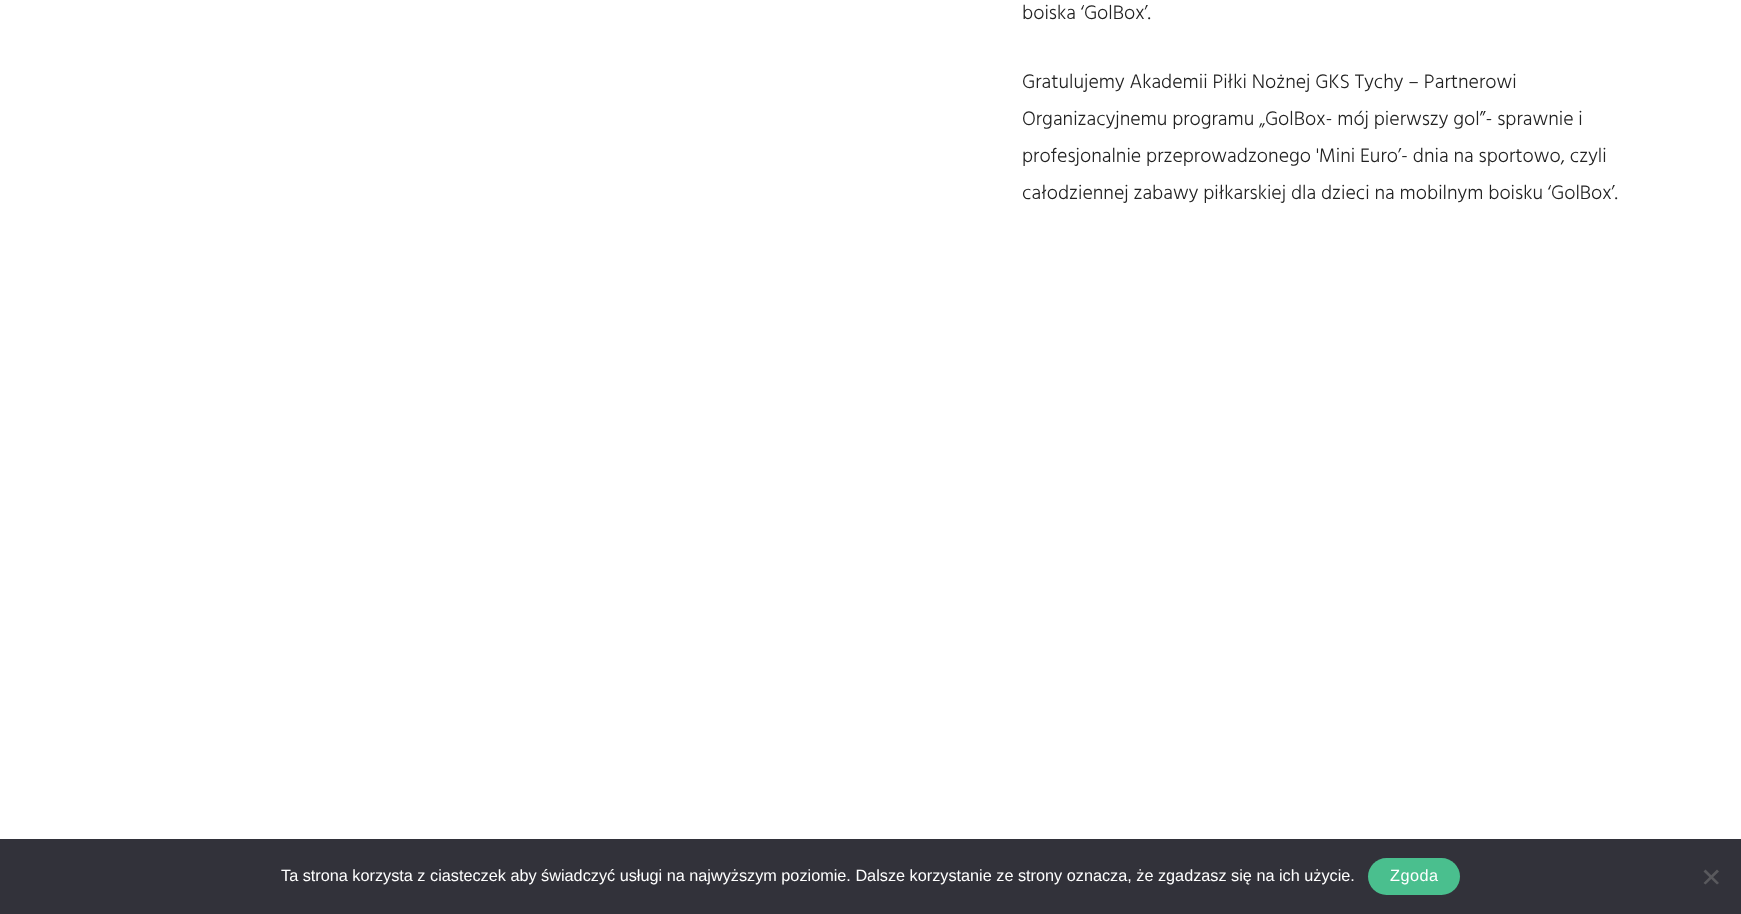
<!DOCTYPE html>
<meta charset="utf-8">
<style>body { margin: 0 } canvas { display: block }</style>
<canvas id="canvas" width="1741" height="914"></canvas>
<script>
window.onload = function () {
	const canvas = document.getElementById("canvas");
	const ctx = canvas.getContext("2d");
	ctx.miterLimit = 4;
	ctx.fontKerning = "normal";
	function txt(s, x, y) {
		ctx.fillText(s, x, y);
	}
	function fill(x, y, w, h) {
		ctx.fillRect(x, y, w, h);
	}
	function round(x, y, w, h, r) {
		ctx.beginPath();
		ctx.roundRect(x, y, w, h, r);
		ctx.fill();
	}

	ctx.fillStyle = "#FFFFFF";
	fill(0, 0, 1741, 914);
	ctx.fillStyle = "#32323A";
	fill(0, 839, 1741, 75);
	ctx.fillStyle = "#4ABF8E";
	round(1368, 858, 92, 37, 18.5);
	ctx.fillStyle = "#59595D";
	ctx.beginPath();
	ctx.moveTo(1717, 869.5);
	ctx.lineTo(1719, 871.5);
	ctx.lineTo(1705.5, 884.5);
	ctx.lineTo(1703.5, 883);
	ctx.closePath();
	ctx.fill();
	ctx.beginPath();
	ctx.moveTo(1703.5, 871.5);
	ctx.lineTo(1705.5, 869.5);
	ctx.lineTo(1719, 883);
	ctx.lineTo(1717, 884.5);
	ctx.closePath();
	ctx.fill();
	ctx.font = "300 20px Hind";
	ctx.fillStyle = "#222222";
	txt("boiska ‘GolBox’.", 1022, 19);
	txt("Gratulujemy Akademii Piłki Nożnej GKS Tychy – Partnerowi", 1022, 88);
	txt("Organizacyjnemu programu „GolBox- mój pierwszy gol”- sprawnie i", 1022, 125);
	txt("profesjonalnie przeprowadzonego 'Mini Euro’- dnia na sportowo, czyli", 1022, 162);
	txt("całodziennej zabawy piłkarskiej dla dzieci na mobilnym boisku ‘GolBox’.", 1022, 199);
	ctx.font = "16.25px Liberation Sans";
	ctx.fillStyle = "#FFFFFF";
	txt("Ta strona korzysta z ciasteczek aby świadczyć usługi na najwyższym poziomie. Dalsze korzystanie ze strony oznacza, że zgadzasz się na ich użycie.", 281, 881);
	ctx.letterSpacing = "0.5px";
	txt("Zgoda", 1390, 881);
};
</script>
